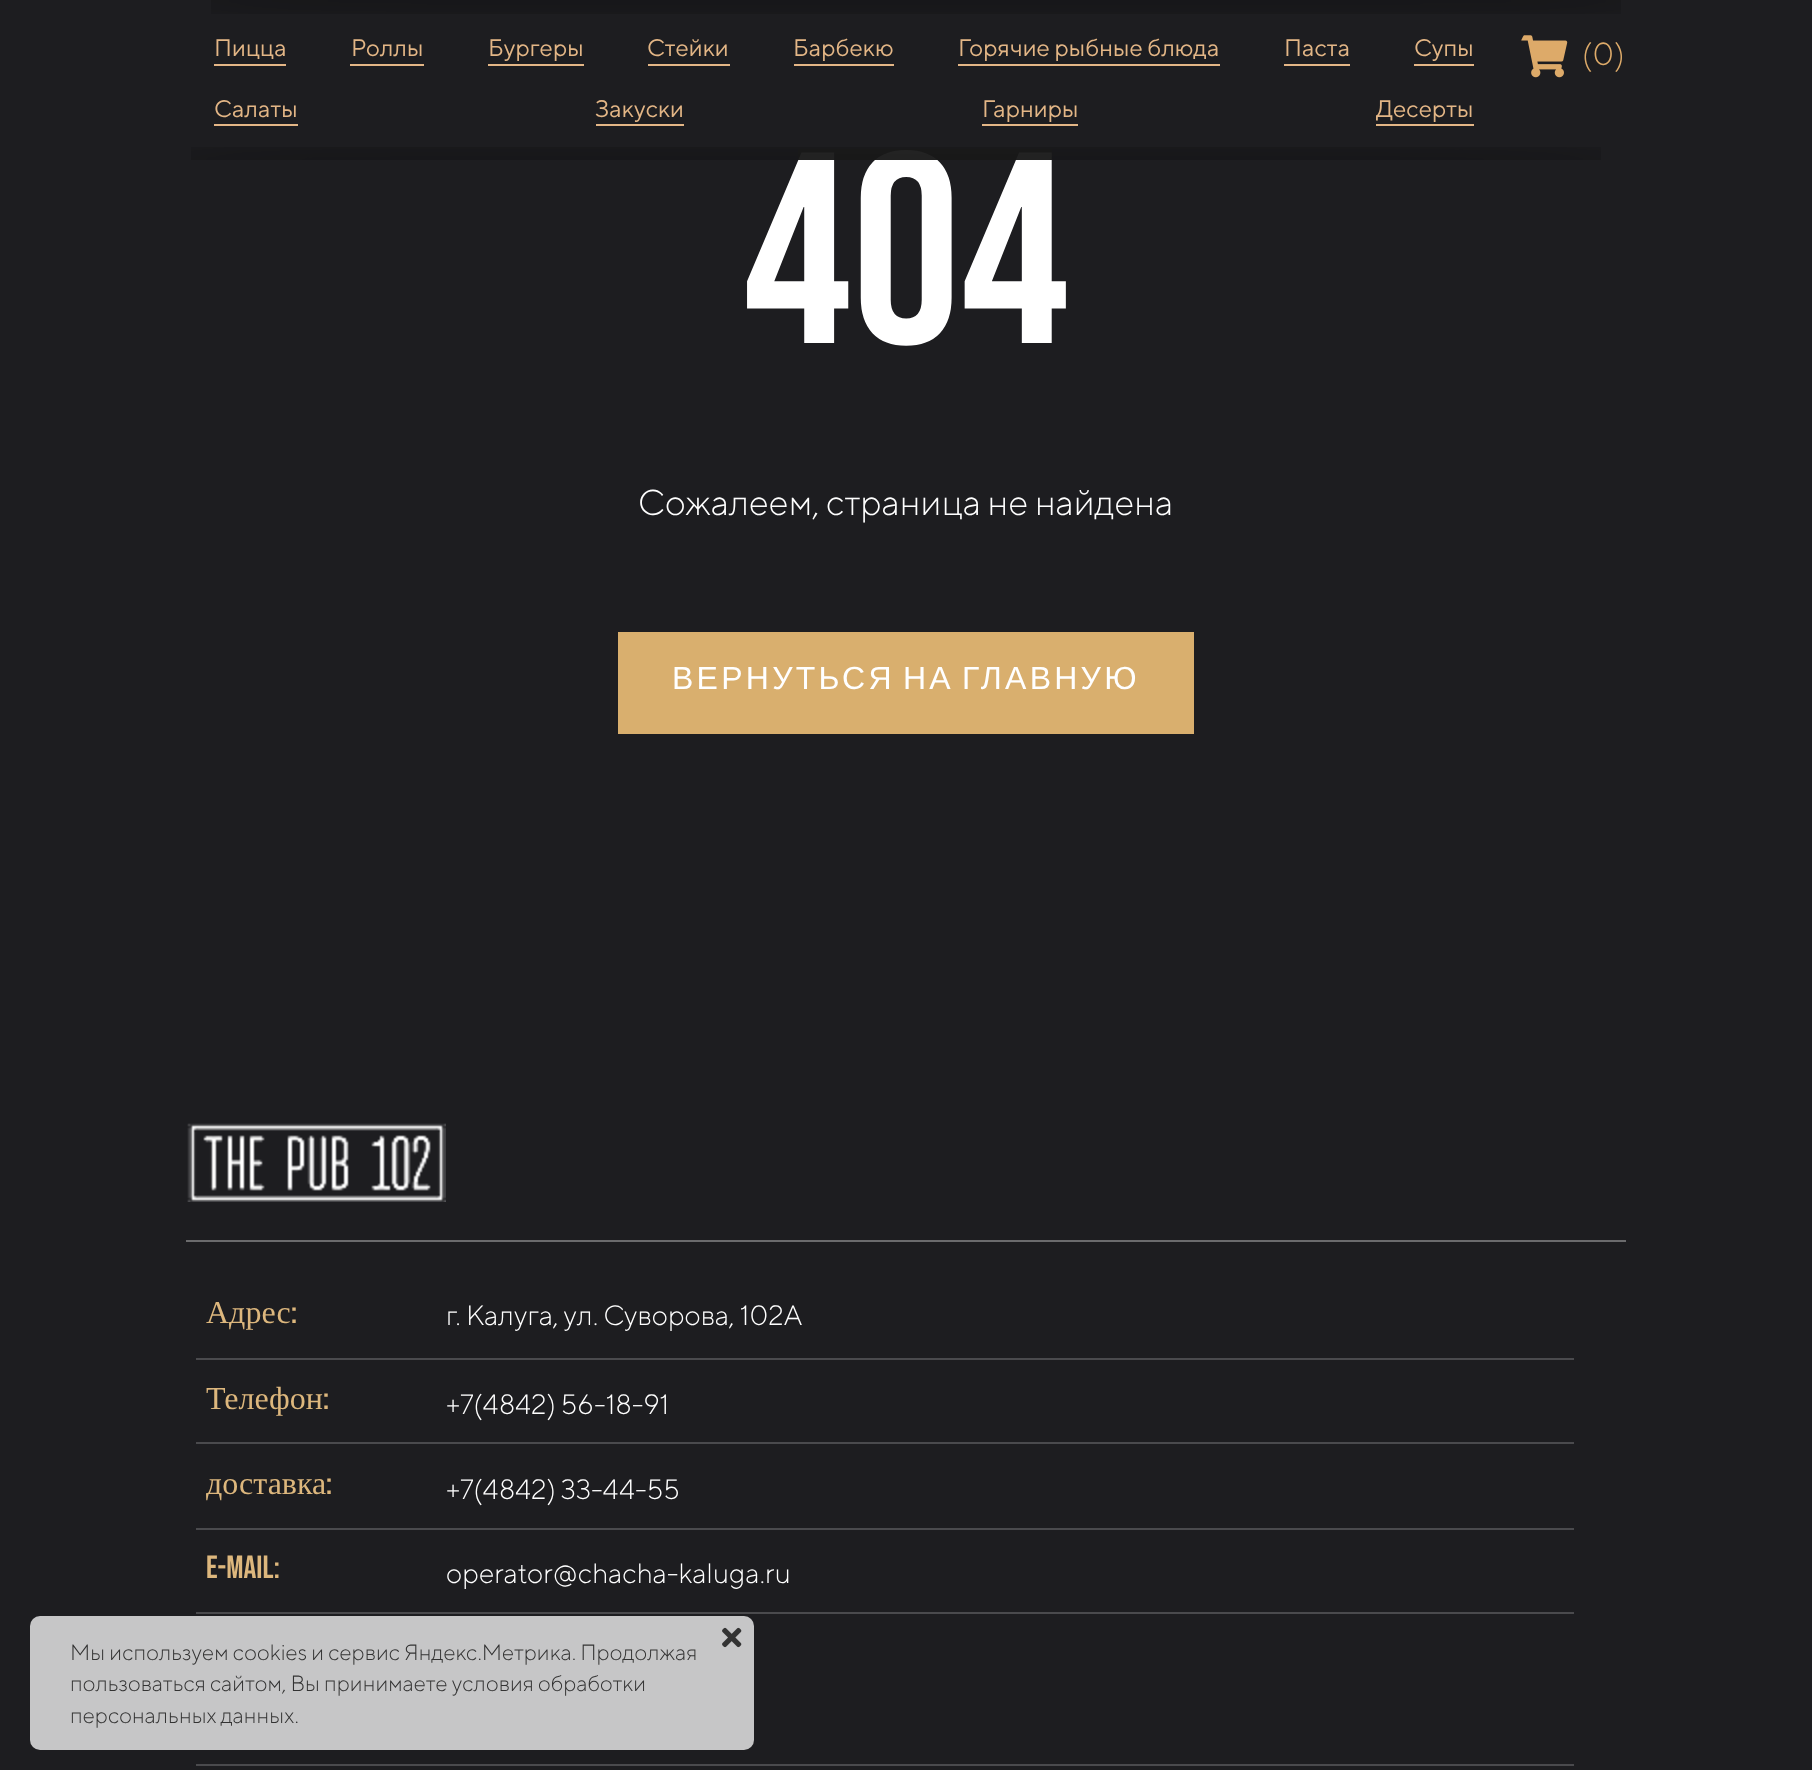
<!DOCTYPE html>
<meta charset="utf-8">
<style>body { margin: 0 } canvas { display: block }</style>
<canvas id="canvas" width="1812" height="1770"></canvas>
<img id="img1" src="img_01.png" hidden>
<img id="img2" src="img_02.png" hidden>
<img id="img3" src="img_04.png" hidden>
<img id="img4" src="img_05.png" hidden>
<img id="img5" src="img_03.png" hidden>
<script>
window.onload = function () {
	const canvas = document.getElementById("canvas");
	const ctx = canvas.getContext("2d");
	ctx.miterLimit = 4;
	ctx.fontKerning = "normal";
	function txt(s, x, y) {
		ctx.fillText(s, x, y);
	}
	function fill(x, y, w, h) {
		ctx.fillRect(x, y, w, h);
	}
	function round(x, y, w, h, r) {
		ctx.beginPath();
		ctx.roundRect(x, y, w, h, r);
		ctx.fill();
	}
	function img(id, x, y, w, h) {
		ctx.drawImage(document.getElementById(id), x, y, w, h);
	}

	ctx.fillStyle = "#1D1D20";
	fill(0, 0, 1812, 1770);
	img("img1", 211, 0, 1410, 14);
	ctx.fillStyle = "#E3B686";
	fill(214, 64, 72, 2);
	fill(350, 64, 74, 2);
	fill(488, 64, 96, 2);
	fill(648, 64, 82, 2);
	fill(794, 64, 100, 2);
	fill(958, 64, 262, 2);
	fill(1284, 64, 66, 2);
	fill(1414, 64, 60, 2);
	fill(214, 124, 84, 2);
	fill(596, 124, 88, 2);
	fill(982, 124, 96, 2);
	fill(1376, 124, 98, 2);
	img("img2", 1521, 35, 47, 43);
	ctx.fillStyle = "#D9AF6E";
	fill(618, 632, 576, 102);
	img("img3", 187, 1123, 259, 79);
	ctx.fillStyle = "#6B6B6D";
	fill(186, 1240, 1440, 2);
	ctx.fillStyle = "#4A4A4D";
	fill(196, 1358, 1378, 2);
	fill(196, 1442, 1378, 2);
	fill(196, 1528, 1378, 2);
	fill(196, 1612, 1378, 2);
	fill(196, 1764, 1378, 2);
	ctx.fillStyle = "rgba(255, 255, 255, 0.75)";
	round(30, 1616, 724, 134, 10);
	img("img4", 722, 1627, 20, 21);
	ctx.font = "24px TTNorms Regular";
	ctx.fillStyle = "#E3B686";
	txt("Пицца", 214, 56);
	txt("Роллы", 351, 56);
	txt("Бургеры", 488, 56);
	txt("Стейки", 647, 56);
	txt("Барбекю", 793, 56);
	txt("Горячие рыбные блюда", 958, 56);
	txt("Паста", 1284, 56);
	txt("Супы", 1414, 56);
	txt("Салаты", 214, 117);
	txt("Закуски", 595, 117);
	txt("Гарниры", 982, 117);
	txt("Десерты", 1376, 117);
	ctx.font = "32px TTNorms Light";
	ctx.fillStyle = "#DEAB6A";
	txt("(0)", 1582, 65);
	ctx.font = "272px Bebas Neue";
	ctx.fillStyle = "#FFFFFF";
	txt("404", 743, 343);
	ctx.fillStyle = "rgba(31, 31, 31, 0.95)";
	fill(798, 149, 254, 11);
	img("img5", 191, 147, 1410, 13);
	ctx.font = "36px TTNorms Light";
	ctx.fillStyle = "#FFFFFF";
	txt("Сожалеем, страница не найдена", 638, 515);
	ctx.letterSpacing = "3.25px";
	ctx.wordSpacing = "-4px";
	ctx.font = "32px Liberation Sans";
	txt("ВЕРНУТЬСЯ НА ГЛАВНУЮ", 672, 689);
	ctx.letterSpacing = "0px";
	ctx.wordSpacing = "0px";
	ctx.font = "32px Liberation Serif";
	ctx.fillStyle = "#DDB77D";
	txt("Адрес", 206, 1323);
	ctx.font = "32px Bebas Neue";
	txt(":", 291, 1323);
	ctx.font = "28px TTNorms Light";
	ctx.fillStyle = "#FFFFFF";
	txt("г. Калуга, ул. Суворова, 102А", 446, 1325);
	ctx.font = "32px Liberation Serif";
	ctx.fillStyle = "#DDB77D";
	txt("Телефон", 206, 1409);
	ctx.font = "32px Bebas Neue";
	txt(":", 323, 1409);
	ctx.font = "28px TTNorms Light";
	ctx.fillStyle = "#FFFFFF";
	txt("+7(4842) 56-18-91", 446, 1414);
	ctx.font = "32px Liberation Serif";
	ctx.fillStyle = "#DDB77D";
	txt("доставка", 206, 1494);
	ctx.font = "32px Bebas Neue";
	txt(":", 326, 1494);
	ctx.font = "28px TTNorms Light";
	ctx.fillStyle = "#FFFFFF";
	txt("+7(4842) 33-44-55", 446, 1499);
	ctx.font = "32px Bebas Neue";
	ctx.fillStyle = "#DDB77D";
	txt("E-mail:", 206, 1578);
	ctx.font = "28px TTNorms Light";
	ctx.fillStyle = "#FFFFFF";
	txt("operator@chacha-kaluga.ru", 446, 1583);
	ctx.font = "22px TTNorms Light";
	ctx.fillStyle = "#333333";
	txt("Мы используем cookies и сервис Яндекс.Метрика. Продолжая", 70, 1660);
	txt("пользоваться сайтом, Вы принимаете условия обработки", 70, 1691);
	txt("персональных данных.", 70, 1723);
};
</script>
